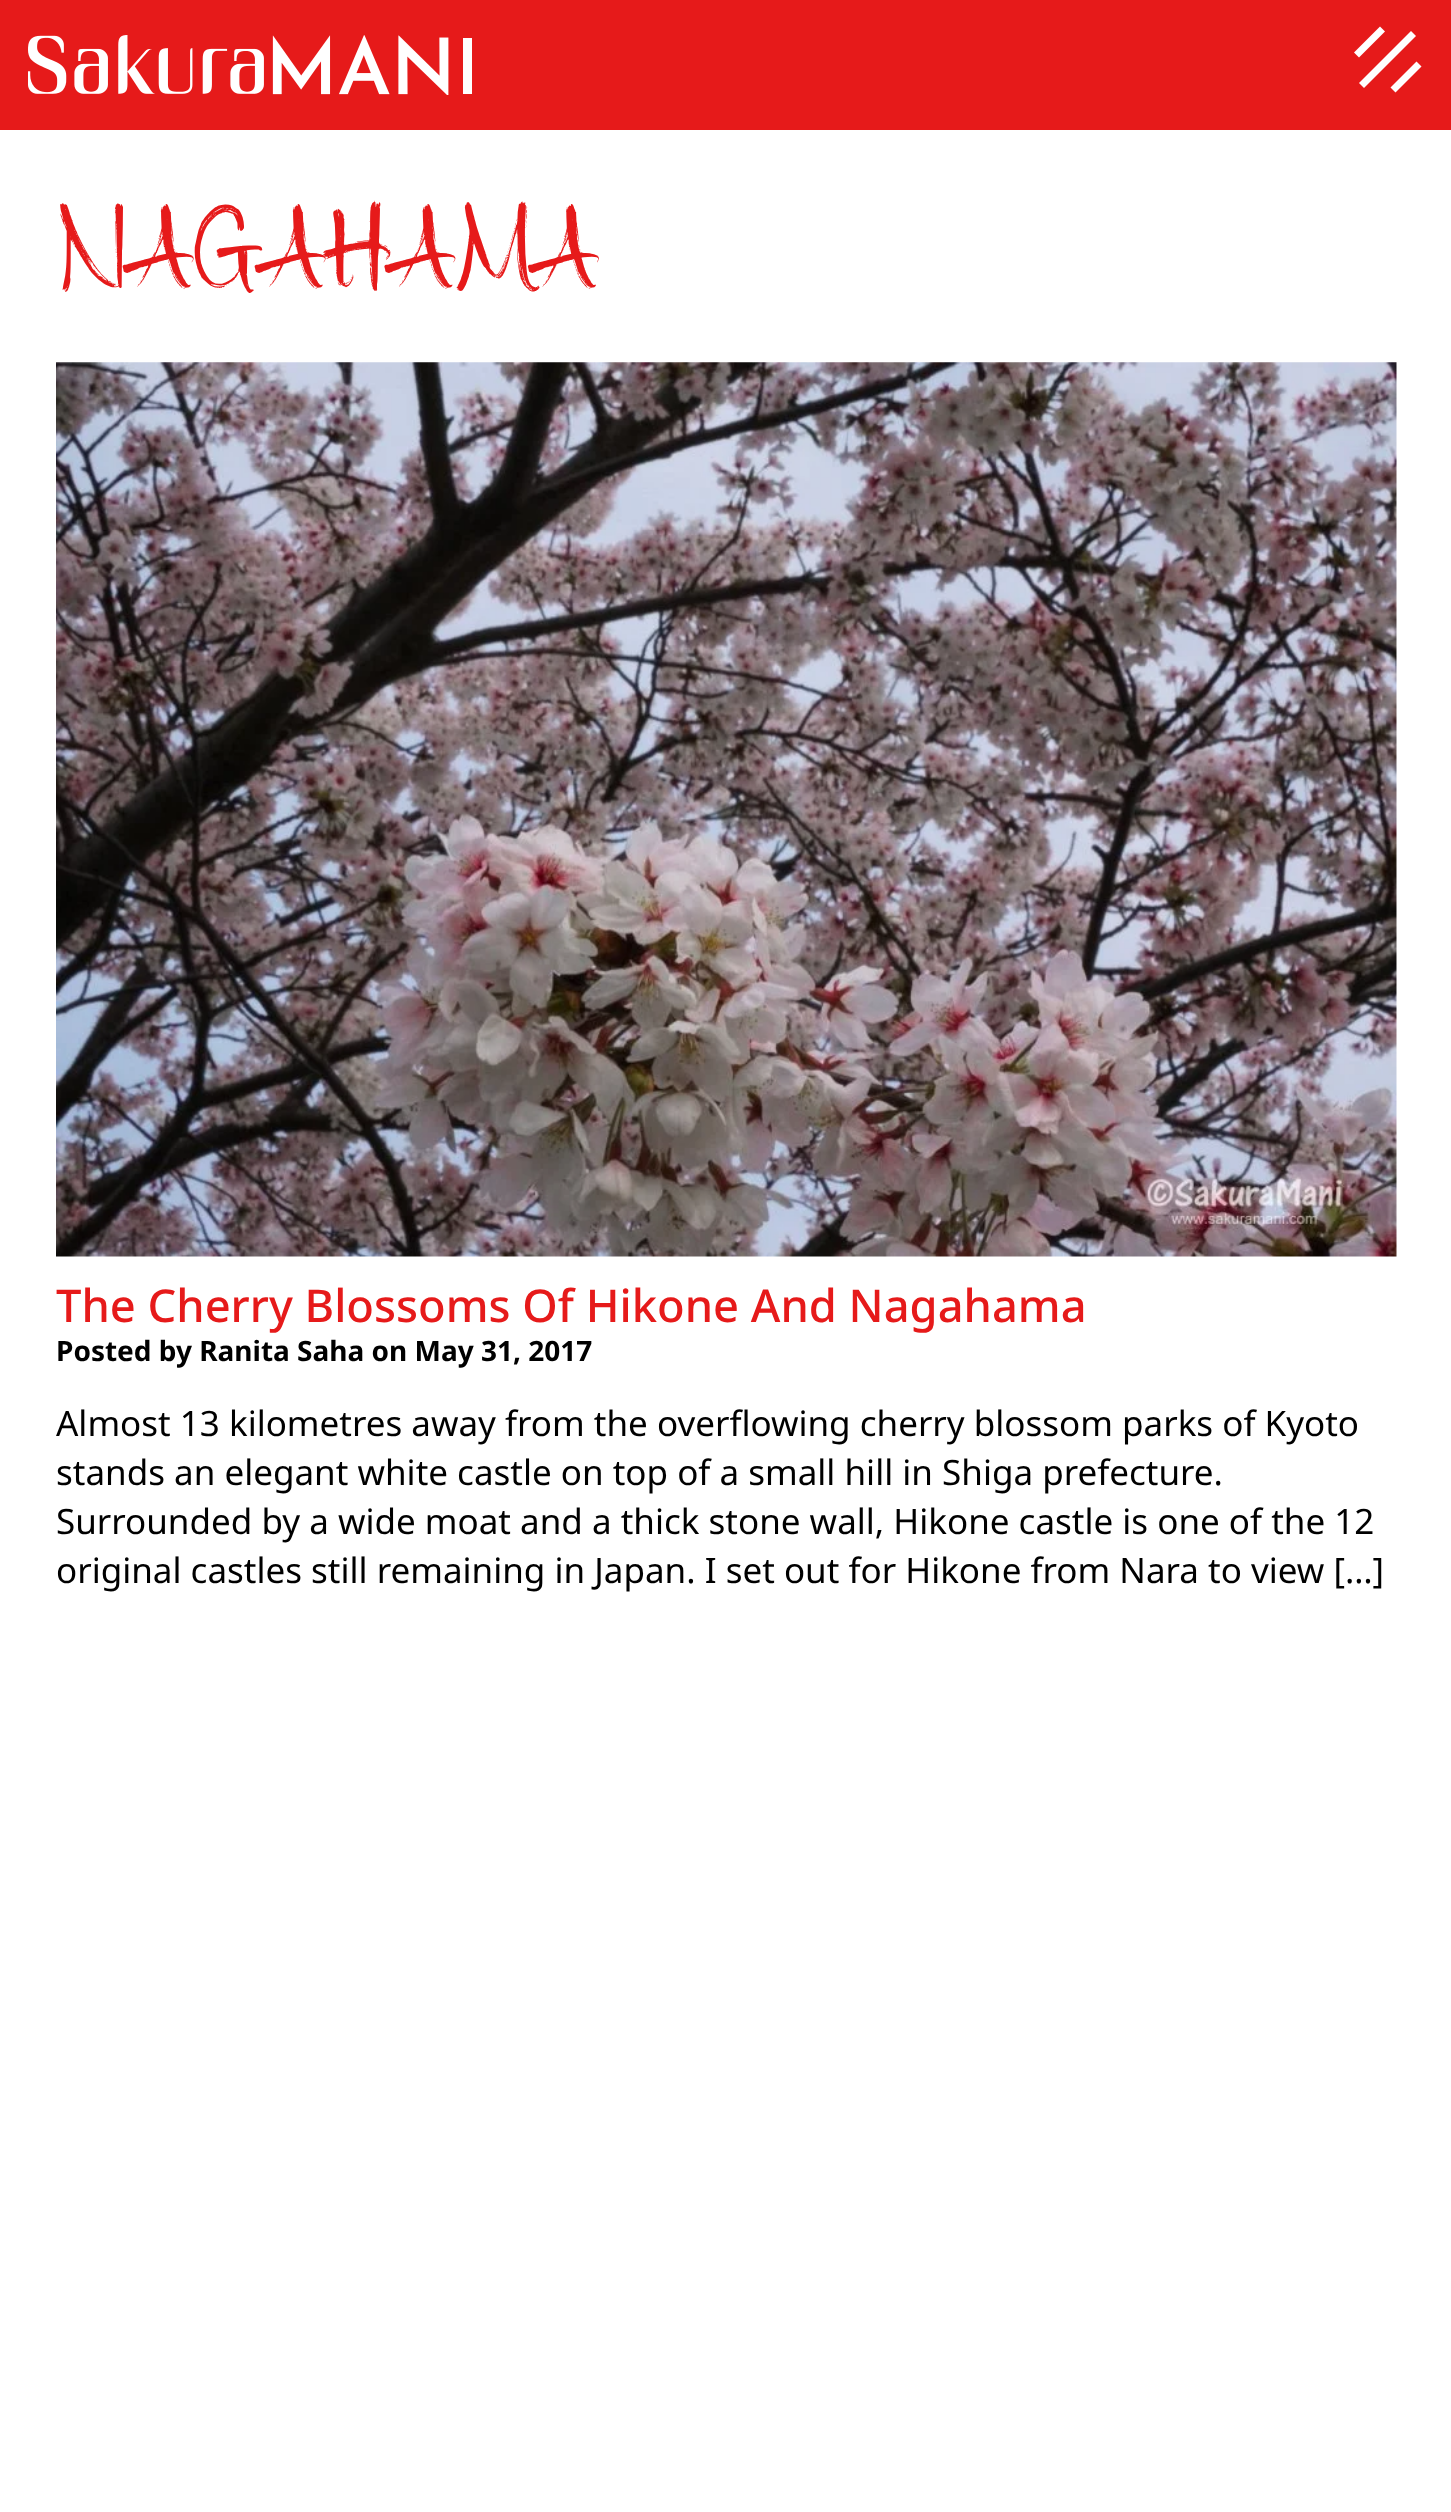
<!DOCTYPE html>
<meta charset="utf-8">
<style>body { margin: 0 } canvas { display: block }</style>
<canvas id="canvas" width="1451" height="2512"></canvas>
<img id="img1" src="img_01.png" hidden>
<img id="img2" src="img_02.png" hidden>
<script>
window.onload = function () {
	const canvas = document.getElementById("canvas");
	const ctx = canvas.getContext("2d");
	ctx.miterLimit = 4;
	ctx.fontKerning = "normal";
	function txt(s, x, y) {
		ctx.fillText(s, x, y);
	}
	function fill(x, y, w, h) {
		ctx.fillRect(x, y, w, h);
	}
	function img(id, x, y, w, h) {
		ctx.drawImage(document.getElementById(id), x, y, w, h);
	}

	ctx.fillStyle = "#FFFFFF";
	fill(0, 0, 1451, 2512);
	ctx.fillStyle = "#E61A1A";
	fill(0, 0, 1451, 130);
	img("img1", 28, 35, 444, 60);
	ctx.fillStyle = "#FFFFFF";
	ctx.beginPath();
	ctx.moveTo(1354, 52.5);
	ctx.lineTo(1380, 26.5);
	ctx.lineTo(1385, 31.5);
	ctx.lineTo(1359, 57.5);
	ctx.closePath();
	ctx.fill();
	ctx.beginPath();
	ctx.moveTo(1359, 83);
	ctx.lineTo(1411, 31);
	ctx.lineTo(1416, 36);
	ctx.lineTo(1364, 88);
	ctx.closePath();
	ctx.fill();
	ctx.beginPath();
	ctx.moveTo(1390.5, 87.5);
	ctx.lineTo(1416.5, 61.5);
	ctx.lineTo(1421.5, 66.5);
	ctx.lineTo(1395.5, 92.5);
	ctx.closePath();
	ctx.fill();
	img("img2", 56, 362, 1341, 895);
	ctx.font = "120.5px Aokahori";
	ctx.fillStyle = "#E61A1A";
	txt("NAGAHAMA", 56, 287);
	ctx.font = "500 45.25px Noto Sans";
	txt("The Cherry Blossoms Of Hikone And Nagahama", 56, 1322);
	ctx.font = "bold 28px Noto Sans";
	ctx.fillStyle = "#000000";
	txt("Posted by Ranita Saha on May 31, 2017", 56, 1361);
	ctx.font = "35px Noto Sans";
	txt("Almost 13 kilometres away from the overflowing cherry blossom parks of Kyoto", 56, 1436);
	txt("stands an elegant white castle on top of a small hill in Shiga prefecture.", 56, 1485);
	txt("Surrounded by a wide moat and a thick stone wall, Hikone castle is one of the 12", 56, 1534);
	txt("original castles still remaining in Japan. I set out for Hikone from Nara to view […]", 56, 1583);
};
</script>
